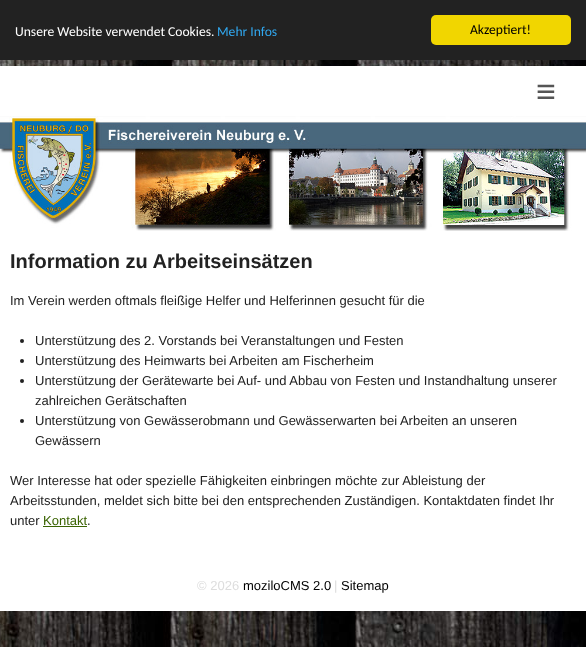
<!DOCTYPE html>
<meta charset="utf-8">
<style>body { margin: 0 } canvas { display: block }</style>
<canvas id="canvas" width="586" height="647"></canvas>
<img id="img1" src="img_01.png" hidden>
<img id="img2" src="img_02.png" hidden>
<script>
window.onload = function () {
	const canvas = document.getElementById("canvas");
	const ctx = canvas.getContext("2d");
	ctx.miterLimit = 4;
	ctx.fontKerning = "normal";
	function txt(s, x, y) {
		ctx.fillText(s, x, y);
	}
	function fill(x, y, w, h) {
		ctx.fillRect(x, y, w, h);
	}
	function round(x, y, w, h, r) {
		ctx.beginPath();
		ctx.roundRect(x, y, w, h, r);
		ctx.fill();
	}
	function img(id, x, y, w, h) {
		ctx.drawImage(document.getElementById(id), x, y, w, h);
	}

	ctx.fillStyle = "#FFFFFF";
	fill(0, 0, 586, 647);
	img("img1", 0, 60, 586, 587);
	ctx.fillStyle = "#222222";
	fill(0, 0, 586, 60);
	ctx.fillStyle = "#F1D600";
	round(431, 15, 140, 30, 5);
	ctx.fillStyle = "#FFFFFF";
	fill(0, 66, 586, 50);
	img("img2", 0, 116, 586, 115);
	fill(0, 231, 586, 380);
	ctx.fillStyle = "#222222";
	ctx.beginPath();
	ctx.arc(22, 341, 2, 0, Math.PI * 2);
	ctx.fill();
	ctx.beginPath();
	ctx.arc(22, 361, 2, 0, Math.PI * 2);
	ctx.fill();
	ctx.beginPath();
	ctx.arc(22, 381, 2, 0, Math.PI * 2);
	ctx.fill();
	ctx.beginPath();
	ctx.arc(22, 421, 2, 0, Math.PI * 2);
	ctx.fill();
	ctx.fillStyle = "#3A6302";
	fill(43, 526, 44, 1);
	ctx.font = "13.6px Carlito";
	ctx.fillStyle = "#FFFFFF";
	txt("Unsere Website verwendet Cookies.", 15, 36);
	ctx.fillStyle = "#31A8F0";
	txt("Mehr Infos", 217, 36);
	ctx.fillStyle = "#000000";
	txt("Akzeptiert!", 470, 34);
	ctx.font = "bold 34px Liberation Sans";
	ctx.fillStyle = "#555555";
	txt("≡", 536, 103);
	ctx.font = "bold 20px Liberation Sans";
	ctx.fillStyle = "#222222";
	txt("Information zu Arbeitseinsätzen", 10, 268);
	ctx.font = "13px Liberation Sans";
	txt("Im Verein werden oftmals fleißige Helfer und Helferinnen gesucht für die", 10, 305);
	txt("Unterstützung des 2. Vorstands bei Veranstaltungen und Festen", 35, 345);
	txt("Unterstützung des Heimwarts bei Arbeiten am Fischerheim", 35, 365);
	txt("Unterstützung der Gerätewarte bei Auf- und Abbau von Festen und Instandhaltung unserer", 35, 385);
	txt("zahlreichen Gerätschaften", 35, 405);
	txt("Unterstützung von Gewässerobmann und Gewässerwarten bei Arbeiten an unseren", 35, 425);
	txt("Gewässern", 35, 445);
	txt("Wer Interesse hat oder spezielle Fähigkeiten einbringen möchte zur Ableistung der", 10, 485);
	txt("Arbeitsstunden, meldet sich bitte bei den entsprechenden Zuständigen. Kontaktdaten findet Ihr", 10, 505);
	txt("unter", 10, 525);
	ctx.fillStyle = "#3A6302";
	txt("Kontakt", 43, 525);
	ctx.fillStyle = "#222222";
	txt(".", 87, 525);
	ctx.fillStyle = "#DDDDDD";
	txt("© 2026", 197, 590);
	ctx.fillStyle = "#000000";
	txt("moziloCMS 2.0", 243, 590);
	ctx.fillStyle = "#DDDDDD";
	txt("|", 334, 590);
	ctx.fillStyle = "#000000";
	txt("Sitemap", 341, 590);
};
</script>
